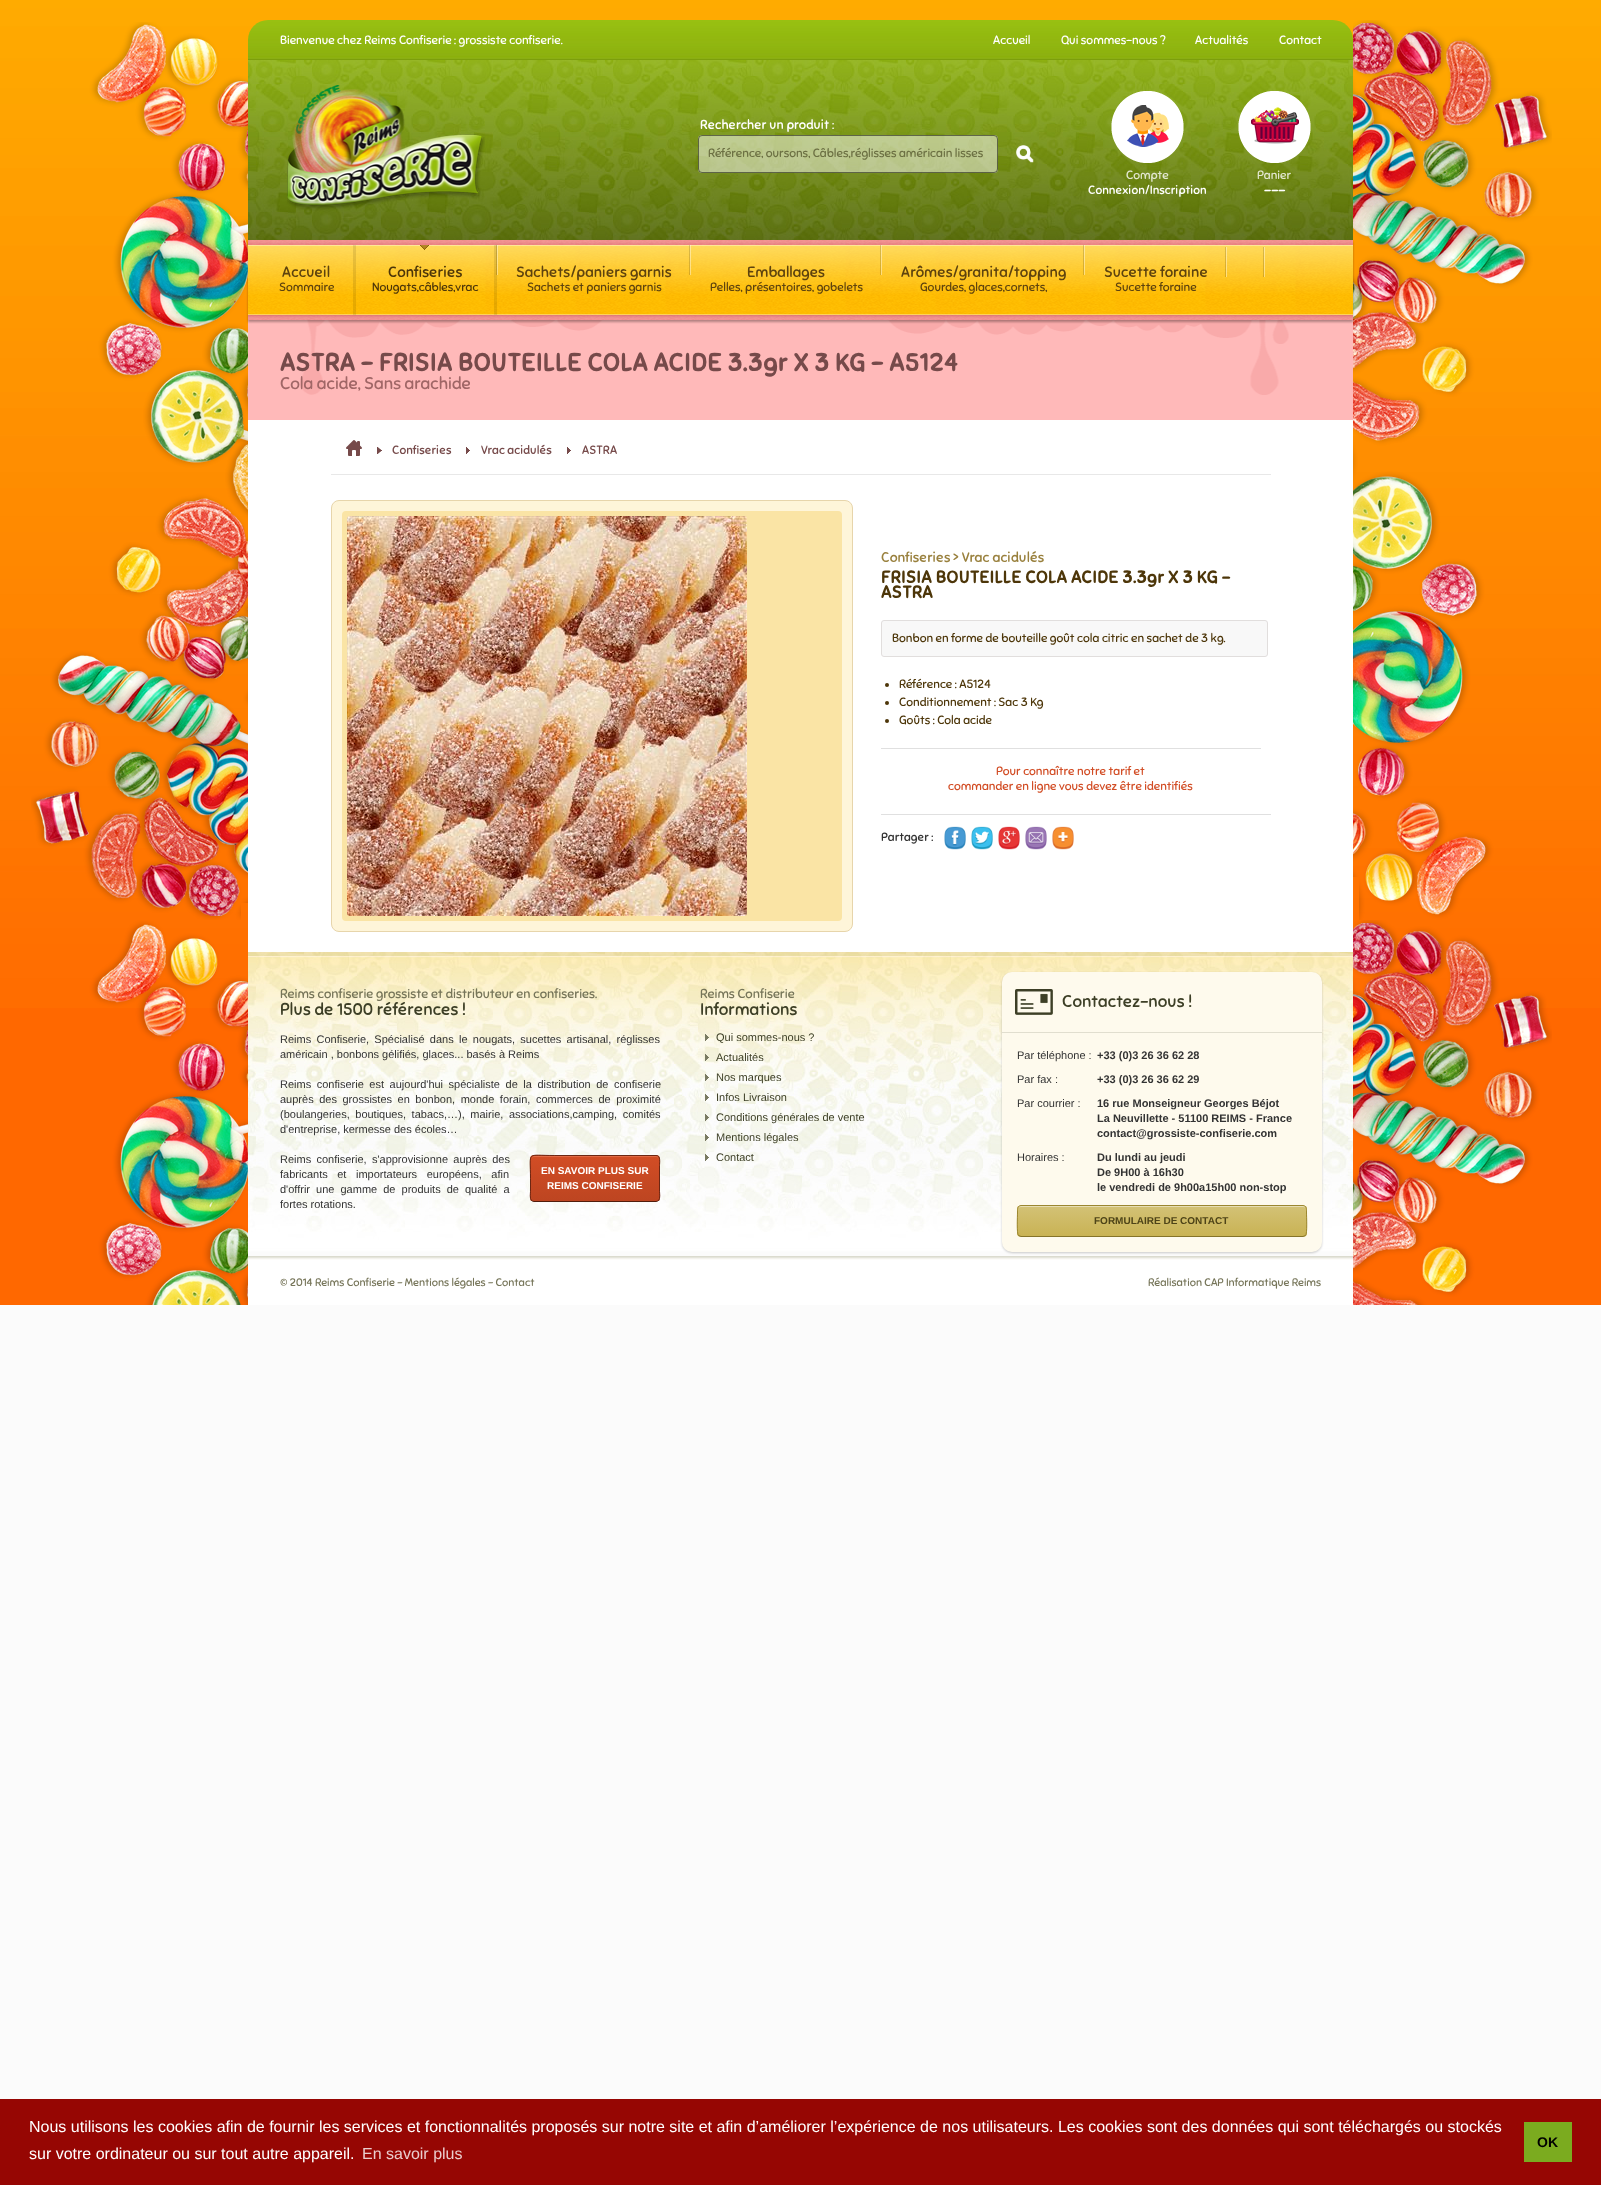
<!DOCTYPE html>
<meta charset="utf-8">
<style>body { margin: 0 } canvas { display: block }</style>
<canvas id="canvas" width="1601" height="2185"></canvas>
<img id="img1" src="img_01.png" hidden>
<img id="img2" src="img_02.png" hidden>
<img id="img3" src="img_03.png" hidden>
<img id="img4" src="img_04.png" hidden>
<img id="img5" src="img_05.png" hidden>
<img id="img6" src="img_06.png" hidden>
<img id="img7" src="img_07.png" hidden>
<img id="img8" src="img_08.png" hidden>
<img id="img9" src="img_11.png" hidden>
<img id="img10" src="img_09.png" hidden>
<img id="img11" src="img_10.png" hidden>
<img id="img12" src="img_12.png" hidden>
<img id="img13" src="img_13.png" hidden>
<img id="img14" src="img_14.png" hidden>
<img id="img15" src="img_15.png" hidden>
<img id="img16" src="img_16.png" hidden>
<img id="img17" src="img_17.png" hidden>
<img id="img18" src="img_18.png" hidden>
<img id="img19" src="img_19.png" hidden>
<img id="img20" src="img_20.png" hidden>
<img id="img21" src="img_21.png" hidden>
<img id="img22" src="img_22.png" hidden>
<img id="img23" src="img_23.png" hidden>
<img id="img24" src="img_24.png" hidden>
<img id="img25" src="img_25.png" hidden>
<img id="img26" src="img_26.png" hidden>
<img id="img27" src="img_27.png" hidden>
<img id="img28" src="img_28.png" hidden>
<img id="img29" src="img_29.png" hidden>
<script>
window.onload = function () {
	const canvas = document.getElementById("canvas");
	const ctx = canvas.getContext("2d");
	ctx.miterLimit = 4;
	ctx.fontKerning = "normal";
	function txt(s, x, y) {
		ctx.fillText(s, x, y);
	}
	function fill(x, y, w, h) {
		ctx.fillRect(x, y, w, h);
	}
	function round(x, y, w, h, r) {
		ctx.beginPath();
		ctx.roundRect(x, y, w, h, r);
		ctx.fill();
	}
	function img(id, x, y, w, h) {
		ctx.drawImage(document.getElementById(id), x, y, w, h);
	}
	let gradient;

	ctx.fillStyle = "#FBFBFB";
	fill(0, 0, 1601, 2185);
	ctx.fillStyle = "#FF6800";
	fill(0, 1008, 1601, 297);
	img("img1", 0, 0, 1601, 1008);
	img("img2", 31, 22, 217, 1283);
	img("img3", 248, 20, 1105, 220);
	img("img4", 287, 85, 198, 133);
	ctx.fillStyle = "rgba(255, 255, 255, 0.5)";
	round(698, 135, 300, 38, 4);
	ctx.beginPath();
	ctx.roundRect(698.5, 135.5, 299, 37, 3.5);
	ctx.strokeStyle = "rgba(0, 0, 0, 0.5)";
	ctx.stroke();
	img("img5", 1016, 145, 18, 18);
	img("img6", 1111, 91, 73, 72);
	img("img7", 1238, 91, 73, 72);
	img("img8", 1353, 20, 199, 1285);
	ctx.fillStyle = "#FFB9B9";
	fill(248, 320, 1105, 100);
	img("img9", 300, 320, 989, 75);
	ctx.fillStyle = "rgba(0, 0, 0, 0.3)";
	ctx.filter = "blur(1px)";
	ctx.beginPath();
	ctx.rect(248, 242, 1105, 80);
	ctx.fill();
	ctx.filter = "none";
	img("img10", 248, 240, 1105, 80);
	ctx.fillStyle = "rgba(36, 27, 0, 0.11)";
	fill(353, 245, 3, 70);
	img("img11", 420, 245, 9, 5);
	fill(494, 245, 3, 70);
	ctx.fillStyle = "rgba(0, 0, 0, 0.15)";
	fill(496, 245, 1, 30);
	ctx.fillStyle = "rgba(255, 255, 255, 0.4)";
	fill(497, 245, 1, 30);
	ctx.fillStyle = "rgba(0, 0, 0, 0.15)";
	fill(689, 245, 1, 30);
	ctx.fillStyle = "rgba(255, 255, 255, 0.4)";
	fill(690, 245, 1, 30);
	ctx.fillStyle = "rgba(0, 0, 0, 0.15)";
	fill(880, 245, 1, 30);
	ctx.fillStyle = "rgba(255, 255, 255, 0.4)";
	fill(881, 245, 1, 30);
	ctx.fillStyle = "rgba(0, 0, 0, 0.15)";
	fill(1083, 245, 1, 30);
	ctx.fillStyle = "rgba(255, 255, 255, 0.4)";
	fill(1084, 245, 1, 30);
	ctx.fillStyle = "rgba(0, 0, 0, 0.15)";
	fill(1225, 247, 1, 30);
	ctx.fillStyle = "rgba(255, 255, 255, 0.4)";
	fill(1226, 247, 1, 30);
	ctx.fillStyle = "rgba(0, 0, 0, 0.15)";
	fill(1263, 247, 1, 30);
	ctx.fillStyle = "rgba(255, 255, 255, 0.4)";
	fill(1264, 247, 1, 30);
	ctx.fillStyle = "#FFFFFF";
	fill(248, 420, 1105, 532);
	ctx.fillStyle = "#E8E8E8";
	fill(331, 474, 940, 1);
	img("img12", 346, 440, 16, 16);
	img("img13", 377, 447, 5, 7);
	img("img14", 466, 447, 4, 7);
	img("img14", 567, 447, 4, 7);
	ctx.fillStyle = "#FEF5D9";
	ctx.beginPath();
	ctx.roundRect(331.5, 500.5, 521, 431, 7.5);
	ctx.fill();
	ctx.strokeStyle = "#E7D5AB";
	ctx.stroke();
	ctx.fillStyle = "#FAE4A5";
	round(342, 511, 500, 410, 4);
	img("img15", 347, 516, 400, 400);
	ctx.fillStyle = "#F8F8F8";
	ctx.beginPath();
	ctx.roundRect(881.5, 620.5, 386, 36, 2.5);
	ctx.fill();
	ctx.strokeStyle = "#E1DEDD";
	ctx.stroke();
	ctx.fillStyle = "#4D3609";
	ctx.beginPath();
	ctx.arc(887, 685, 2, 0, Math.PI * 2);
	ctx.fill();
	ctx.beginPath();
	ctx.arc(887, 703, 2, 0, Math.PI * 2);
	ctx.fill();
	ctx.beginPath();
	ctx.arc(887, 721, 2, 0, Math.PI * 2);
	ctx.fill();
	ctx.fillStyle = "#E0E0E0";
	fill(881, 748, 380, 1);
	fill(881, 814, 390, 1);
	img("img16", 944, 826, 22, 24);
	img("img17", 971, 826, 22, 24);
	img("img18", 998, 826, 22, 24);
	img("img19", 1025, 826, 22, 24);
	img("img20", 1052, 826, 22, 24);
	img("img21", 248, 952, 1105, 308);
	ctx.save();
	ctx.beginPath();
	ctx.roundRect(530, 1155, 130, 47, 4);
	ctx.clip();
	gradient = ctx.createLinearGradient(595, 1111, 595, 1156);
	gradient.addColorStop(0, "#D24D25");
	gradient.addColorStop(1, "#BD4521");
	ctx.fillStyle = gradient;
	fill(530, 1155, 130, 1);
	gradient = ctx.createLinearGradient(595, 1156, 595, 1201);
	gradient.addColorStop(0, "#D24D25");
	gradient.addColorStop(1, "#BD4521");
	ctx.fillStyle = gradient;
	fill(530, 1156, 130, 45);
	ctx.restore();
	ctx.fillStyle = "#E16A46";
	ctx.beginPath();
	ctx.moveTo(534, 1157);
	ctx.lineTo(656, 1157);
	ctx.bezierCurveTo(658, 1157, 659, 1158, 659, 1160);
	ctx.bezierCurveTo(659, 1158, 659, 1156, 657, 1156);
	ctx.lineTo(534, 1156);
	ctx.bezierCurveTo(532, 1156, 531, 1158, 531, 1160);
	ctx.bezierCurveTo(531, 1158, 532, 1157, 534, 1157);
	ctx.closePath();
	ctx.fill();
	ctx.beginPath();
	ctx.moveTo(658.5, 1200.5);
	ctx.bezierCurveTo(658, 1201, 657, 1201.5, 656, 1201.5);
	ctx.lineTo(534, 1201.5);
	ctx.bezierCurveTo(533, 1201.5, 532, 1201, 531.5, 1200.5);
	ctx.strokeStyle = "#521D0C";
	ctx.stroke();
	ctx.beginPath();
	ctx.moveTo(531.5, 1200.5);
	ctx.bezierCurveTo(529.5, 1198.5, 530.5, 1193, 530.5, 1191.5);
	ctx.lineTo(530.5, 1178.5);
	ctx.bezierCurveTo(530.5, 1150.5, 525.5, 1155.5, 554.5, 1155.5);
	ctx.lineTo(656, 1155.5);
	ctx.bezierCurveTo(661, 1155.5, 659.5, 1163, 659.5, 1165.5);
	ctx.lineTo(659.5, 1191.5);
	ctx.bezierCurveTo(659.5, 1193, 660.5, 1198.5, 658.5, 1200.5);
	ctx.strokeStyle = "#6C2713";
	ctx.stroke();
	img("img22", 705, 1034, 4, 7);
	img("img23", 705, 1054, 4, 7);
	img("img24", 705, 1074, 4, 7);
	img("img25", 705, 1094, 4, 7);
	img("img26", 705, 1114, 4, 7);
	img("img27", 705, 1134, 4, 7);
	img("img28", 705, 1154, 4, 7);
	ctx.fillStyle = "rgba(0, 0, 0, 0.2)";
	ctx.filter = "blur(1px)";
	ctx.beginPath();
	ctx.roundRect(1002, 973, 320, 280, 10);
	ctx.fill();
	ctx.filter = "none";
	ctx.fillStyle = "#FEFAED";
	round(1002, 972, 320, 280, 10);
	img("img29", 1015, 989, 38, 26);
	ctx.fillStyle = "#E1DECF";
	fill(1002, 1032, 320, 1);
	ctx.save();
	ctx.beginPath();
	ctx.roundRect(1017, 1205, 290, 32, 4);
	ctx.clip();
	gradient = ctx.createLinearGradient(1162, 1206, 1162, 1236);
	gradient.addColorStop(0, "#D3C276");
	gradient.addColorStop(1, "#C9B354");
	ctx.fillStyle = gradient;
	fill(1017, 1206, 290, 30);
	gradient = ctx.createLinearGradient(1162, 1236, 1162, 1266);
	gradient.addColorStop(0, "#D3C276");
	gradient.addColorStop(1, "#C9B354");
	ctx.fillStyle = gradient;
	fill(1017, 1236, 290, 1);
	ctx.restore();
	ctx.fillStyle = "#E7DEB4";
	ctx.beginPath();
	ctx.moveTo(1021, 1207);
	ctx.lineTo(1303, 1207);
	ctx.bezierCurveTo(1305, 1207, 1306, 1208, 1306, 1210);
	ctx.bezierCurveTo(1306, 1208, 1305, 1206, 1303, 1206);
	ctx.lineTo(1021, 1206);
	ctx.bezierCurveTo(1019, 1206, 1018, 1208, 1018, 1210);
	ctx.bezierCurveTo(1018, 1208, 1019, 1207, 1021, 1207);
	ctx.closePath();
	ctx.fill();
	ctx.beginPath();
	ctx.moveTo(1305.5, 1235.5);
	ctx.lineTo(1303, 1236.5);
	ctx.lineTo(1021, 1236.5);
	ctx.lineTo(1018.5, 1235.5);
	ctx.strokeStyle = "#857329";
	ctx.stroke();
	ctx.beginPath();
	ctx.moveTo(1018.5, 1235.5);
	ctx.bezierCurveTo(1016.5, 1233.5, 1017.5, 1216.5, 1017.5, 1213);
	ctx.bezierCurveTo(1017.5, 1210.5, 1017, 1205.5, 1021, 1205.5);
	ctx.lineTo(1303, 1205.5);
	ctx.bezierCurveTo(1307, 1205.5, 1306.5, 1210.5, 1306.5, 1213);
	ctx.bezierCurveTo(1306.5, 1216.5, 1307.5, 1233.5, 1305.5, 1235.5);
	ctx.strokeStyle = "#9C8730";
	ctx.stroke();
	ctx.fillStyle = "#FFFFFF";
	fill(248, 1260, 1105, 45);
	ctx.fillStyle = "#960603";
	fill(0, 2099, 1601, 86);
	ctx.fillStyle = "#7BAB1F";
	fill(1524, 2122, 48, 40);
	ctx.font = "12px Sniglet";
	ctx.fillStyle = "#FFFFFF";
	txt("Bienvenue chez Reims Confiserie : grossiste confiserie.", 280, 44);
	txt("Accueil", 993, 44);
	txt("Qui sommes-nous ?", 1061, 44);
	txt("Actualités", 1195, 44);
	txt("Contact", 1279, 44);
	ctx.font = "500 13px Sniglet";
	txt("Rechercher un produit :", 700, 129);
	ctx.font = "12px Sniglet";
	ctx.fillStyle = "#6C7043";
	txt("Référence, oursons, Câbles,réglisses américain lisses", 708, 157);
	ctx.fillStyle = "#E3E7D1";
	txt("Compte", 1126, 179);
	ctx.font = "500 12px Sniglet";
	ctx.fillStyle = "#FFFFFF";
	txt("Connexion/Inscription", 1088, 194);
	ctx.font = "12px Sniglet";
	ctx.fillStyle = "#E3E7D1";
	txt("Panier", 1257, 179);
	ctx.font = "500 15px Sniglet";
	ctx.fillStyle = "#FFFFFF";
	txt("---", 1264, 195);
	ctx.fillStyle = "#5E430E";
	txt("Accueil", 282, 277);
	ctx.font = "12px Sniglet";
	txt("Sommaire", 279, 291);
	ctx.font = "500 15px Sniglet";
	ctx.fillStyle = "#4D3609";
	txt("Confiseries", 388, 277);
	ctx.font = "12px Sniglet";
	txt("Nougats,câbles,vrac", 372, 291);
	ctx.font = "500 15px Sniglet";
	ctx.fillStyle = "#5E430E";
	txt("Sachets/paniers garnis", 516, 277);
	ctx.font = "12px Sniglet";
	txt("Sachets et paniers garnis", 527, 291);
	ctx.font = "500 15px Sniglet";
	txt("Emballages", 747, 277);
	ctx.font = "12px Sniglet";
	txt("Pelles, présentoires, gobelets", 710, 291);
	ctx.font = "500 15px Sniglet";
	txt("Arômes/granita/topping", 901, 277);
	ctx.font = "12px Sniglet";
	txt("Gourdes, glaces,cornets,", 920, 291);
	ctx.font = "500 15px Sniglet";
	txt("Sucette foraine", 1104, 277);
	ctx.font = "12px Sniglet";
	txt("Sucette foraine", 1115, 291);
	ctx.font = "bold 26px Sniglet";
	ctx.fillStyle = "#764A4A";
	txt("ASTRA - FRISIA BOUTEILLE COLA ACIDE 3.3gr X 3 KG - A5124", 280, 371);
	ctx.font = "17px Sniglet";
	ctx.fillStyle = "#A06666";
	txt("Cola acide, Sans arachide", 280, 389);
	ctx.font = "500 12px Sniglet";
	ctx.fillStyle = "#764A4A";
	txt("Confiseries", 392, 454);
	txt("Vrac acidulés", 481, 454);
	txt("ASTRA", 582, 454);
	ctx.font = "500 14px Sniglet";
	ctx.fillStyle = "#99803D";
	txt("Confiseries > Vrac acidulés", 881, 562);
	ctx.font = "bold 18px Sniglet";
	ctx.fillStyle = "#4D3609";
	txt("FRISIA BOUTEILLE COLA ACIDE 3.3gr X 3 KG -", 881, 583);
	txt("ASTRA", 881, 598);
	ctx.font = "12px Sniglet";
	txt("Bonbon en forme de bouteille goût cola citric en sachet de 3 kg.", 892, 642);
	txt("Référence : A5124", 899, 688);
	txt("Conditionnement : Sac 3 Kg", 899, 706);
	txt("Goûts : Cola acide", 899, 724);
	ctx.fillStyle = "#D24D25";
	txt("Pour connaître notre tarif et", 996, 775);
	txt("commander en ligne vous devez être identifiés", 948, 790);
	ctx.font = "500 12px Sniglet";
	ctx.fillStyle = "#333333";
	txt("Partager :", 881, 841);
	ctx.font = "13px Sniglet";
	ctx.fillStyle = "#767559";
	txt("Reims confiserie grossiste et distributeur en confiseries.", 280, 998);
	ctx.font = "500 17px Sniglet";
	ctx.fillStyle = "#3D3F26";
	txt("Plus de 1500 références !", 280, 1015);
	ctx.wordSpacing = "2.25px";
	ctx.font = "11px Liberation Sans";
	ctx.fillStyle = "#333333";
	txt("Reims Confiserie, Spécialisé dans le nougats, sucettes artisanal, réglisses", 280, 1043);
	ctx.wordSpacing = "0px";
	txt("américain , bonbons gélifiés, glaces... basés à Reims", 280, 1058);
	ctx.wordSpacing = "2.5px";
	txt("Reims confiserie est aujourd'hui spécialiste de la distribution de confiserie", 280, 1088);
	txt("auprès des grossistes en bonbon, monde forain, commerces de proximité", 280, 1103);
	txt("(boulangeries, boutiques, tabacs,…), mairie, associations,camping, comités", 280, 1118);
	ctx.wordSpacing = "0px";
	txt("d'entreprise, kermesse des écoles…", 280, 1133);
	ctx.wordSpacing = "2.25px";
	txt("Reims confiserie, s'approvisionne auprès des", 280, 1163);
	ctx.wordSpacing = "6.5px";
	txt("fabricants et importateurs européens, afin", 280, 1178);
	ctx.wordSpacing = "3px";
	txt("d'offrir une gamme de produits de qualité a", 280, 1193);
	ctx.wordSpacing = "0px";
	txt("fortes rotations.", 280, 1208);
	ctx.font = "bold 10px Liberation Sans";
	ctx.fillStyle = "#FFFFFF";
	txt("EN SAVOIR PLUS SUR", 541, 1174);
	txt("REIMS CONFISERIE", 547, 1189);
	ctx.font = "13px Sniglet";
	ctx.fillStyle = "#767559";
	txt("Reims Confiserie", 700, 998);
	ctx.font = "500 17px Sniglet";
	ctx.fillStyle = "#3D3F26";
	txt("Informations", 700, 1015);
	ctx.font = "11px Liberation Sans";
	txt("Qui sommes-nous ?", 716, 1041);
	txt("Actualités", 716, 1061);
	txt("Nos marques", 716, 1081);
	txt("Infos Livraison", 716, 1101);
	txt("Conditions générales de vente", 716, 1121);
	txt("Mentions légales", 716, 1141);
	txt("Contact", 716, 1161);
	ctx.font = "500 17px Sniglet";
	txt("Contactez-nous !", 1062, 1007);
	ctx.font = "11px Liberation Sans";
	ctx.fillStyle = "#333333";
	txt("Par téléphone :", 1017, 1059);
	ctx.font = "bold 11px Liberation Sans";
	txt("+33 (0)3 26 36 62 28", 1097, 1059);
	ctx.font = "11px Liberation Sans";
	txt("Par fax :", 1017, 1083);
	ctx.font = "bold 11px Liberation Sans";
	txt("+33 (0)3 26 36 62 29", 1097, 1083);
	ctx.font = "11px Liberation Sans";
	txt("Par courrier :", 1017, 1107);
	ctx.font = "bold 11px Liberation Sans";
	txt("16 rue Monseigneur Georges Béjot", 1097, 1107);
	txt("La Neuvillette - 51100 REIMS - France", 1097, 1122);
	txt("contact@grossiste-confiserie.com", 1097, 1137);
	ctx.font = "11px Liberation Sans";
	txt("Horaires :", 1017, 1161);
	ctx.font = "bold 11px Liberation Sans";
	txt("Du lundi au jeudi", 1097, 1161);
	txt("De 9H00 à 16h30", 1097, 1176);
	txt("le vendredi de 9h00a15h00 non-stop", 1097, 1191);
	ctx.font = "bold 10px Liberation Sans";
	ctx.fillStyle = "#4E4418";
	txt("FORMULAIRE DE CONTACT", 1094, 1224);
	ctx.font = "11px Sniglet";
	ctx.fillStyle = "#767559";
	txt("© 2014 Reims Confiserie - Mentions légales - Contact", 280, 1286);
	txt("Réalisation CAP Informatique Reims", 1148, 1286);
	ctx.font = "16px Liberation Sans";
	ctx.fillStyle = "#FFFFFF";
	txt("Nous utilisons les cookies afin de fournir les services et fonctionnalités proposés sur notre site et afin d’améliorer l’expérience de nos utilisateurs. Les cookies sont des données qui sont téléchargés ou stockés", 29, 2132);
	txt("sur votre ordinateur ou sur tout autre appareil.", 29, 2159);
	ctx.fillStyle = "#EACDCD";
	txt("En savoir plus", 362, 2159);
	ctx.font = "bold 14px Liberation Sans";
	ctx.fillStyle = "#000000";
	txt("OK", 1537, 2147);
};
</script>
